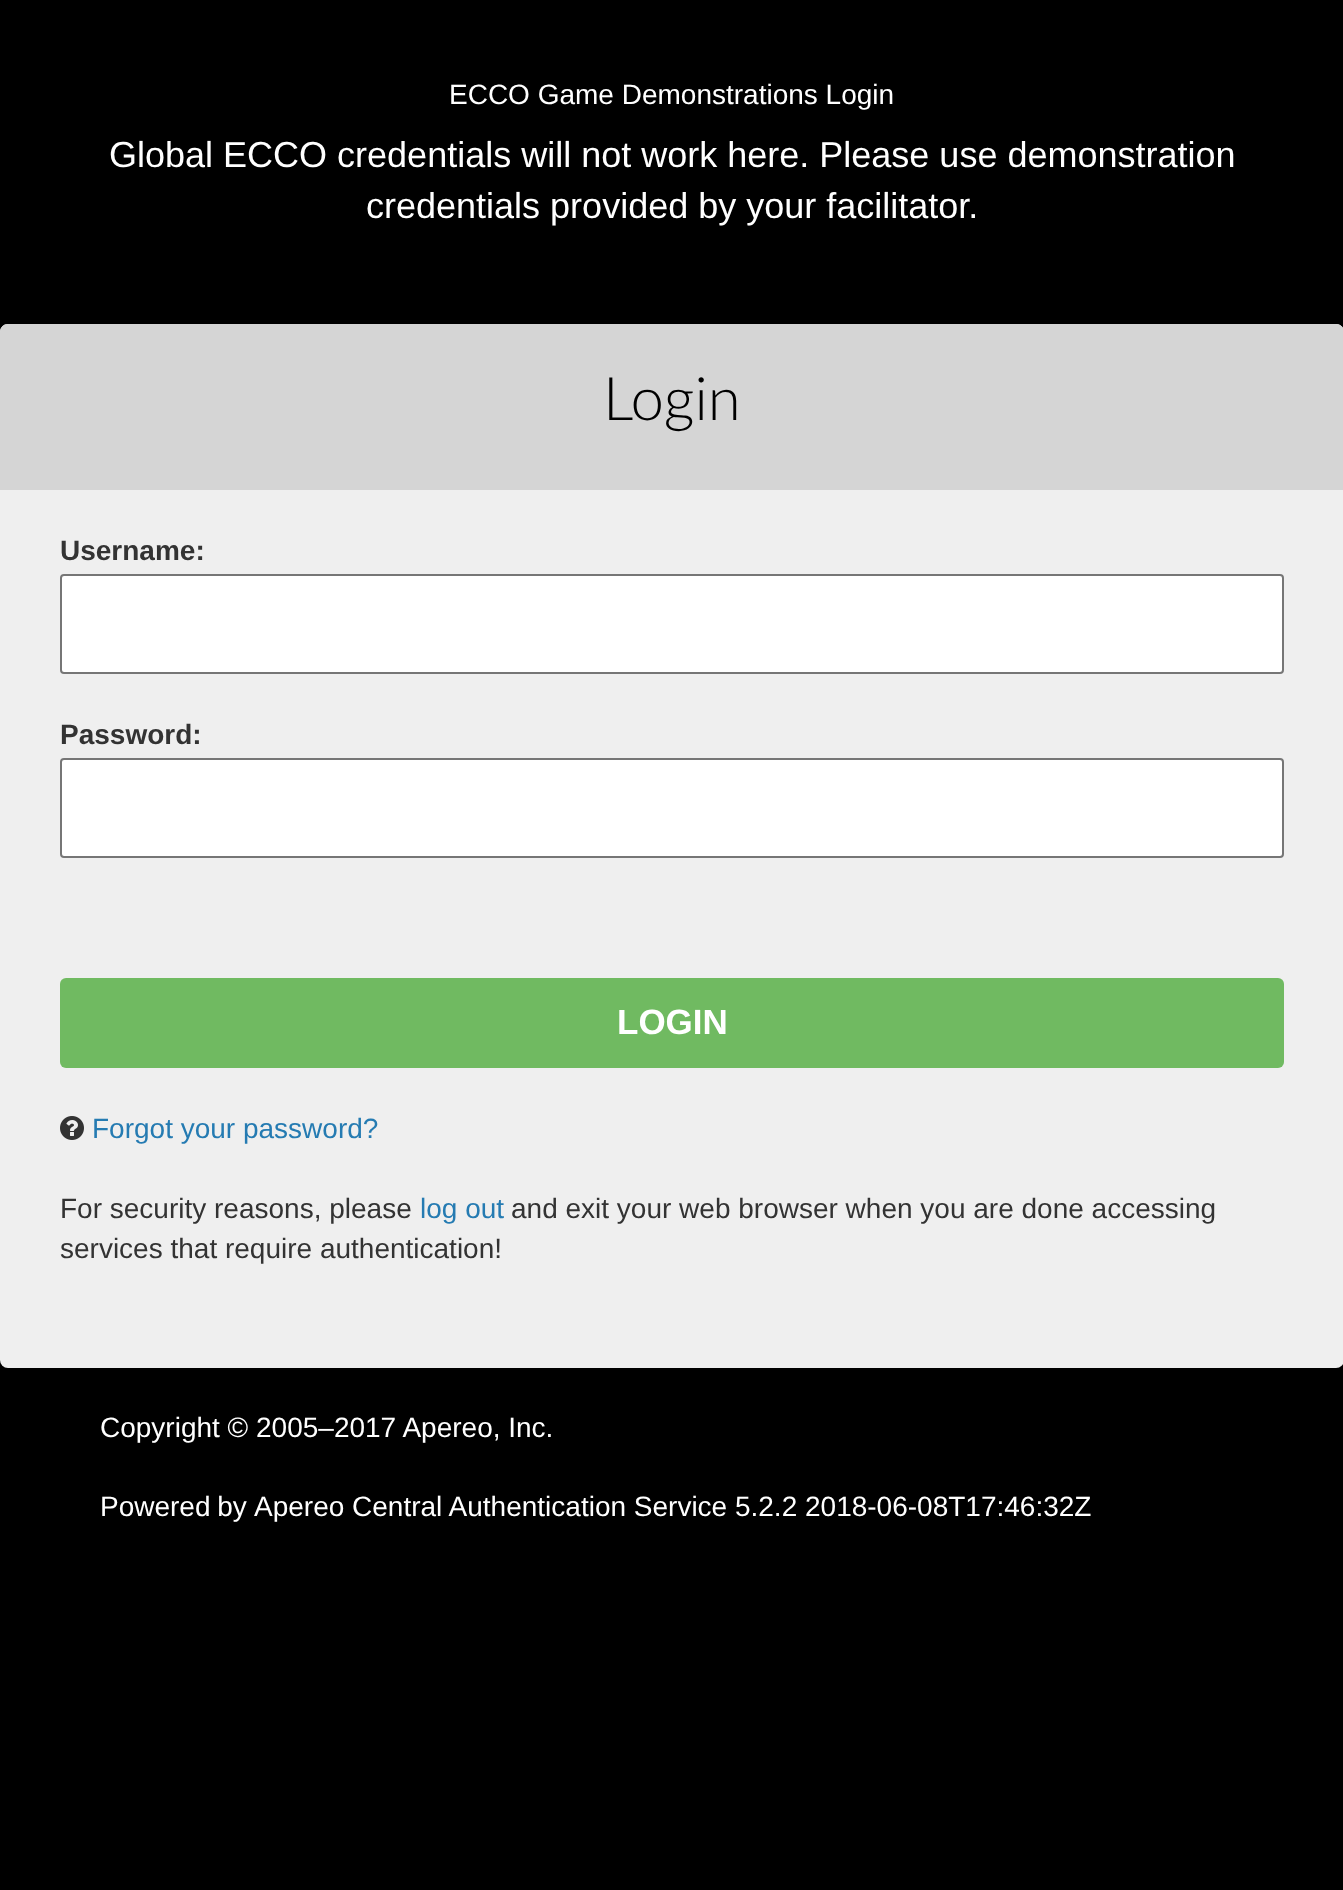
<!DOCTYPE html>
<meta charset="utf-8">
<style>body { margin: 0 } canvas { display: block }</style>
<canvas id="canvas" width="1343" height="1890"></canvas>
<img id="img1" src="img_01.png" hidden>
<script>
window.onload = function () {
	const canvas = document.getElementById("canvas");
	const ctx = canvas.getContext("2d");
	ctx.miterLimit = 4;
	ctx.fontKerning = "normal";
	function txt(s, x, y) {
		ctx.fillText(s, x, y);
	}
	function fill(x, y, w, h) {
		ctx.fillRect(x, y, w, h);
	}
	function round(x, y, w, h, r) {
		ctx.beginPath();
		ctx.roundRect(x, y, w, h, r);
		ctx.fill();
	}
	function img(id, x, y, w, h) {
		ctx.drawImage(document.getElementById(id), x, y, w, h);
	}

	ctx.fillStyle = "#000000";
	fill(0, 0, 1343, 1890);
	ctx.fillStyle = "#EFEFEF";
	round(0, 324, 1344, 1044, 8);
	ctx.fillStyle = "#D5D5D5";
	ctx.beginPath();
	ctx.moveTo(8, 324);
	ctx.lineTo(1336, 324);
	ctx.bezierCurveTo(1340.5, 324, 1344, 327.5, 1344, 332);
	ctx.lineTo(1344, 490);
	ctx.lineTo(0, 490);
	ctx.lineTo(0, 332);
	ctx.bezierCurveTo(0, 327.5, 3.5, 324, 8, 324);
	ctx.closePath();
	ctx.fill();
	ctx.fillStyle = "#FFFFFF";
	ctx.beginPath();
	ctx.roundRect(61, 575, 1222, 98, 3);
	ctx.fill();
	ctx.strokeStyle = "#767676";
	ctx.lineWidth = 2;
	ctx.stroke();
	ctx.beginPath();
	ctx.roundRect(61, 759, 1222, 98, 3);
	ctx.fill();
	ctx.stroke();
	ctx.fillStyle = "#70BA61";
	round(60, 978, 1224, 90, 6);
	img("img1", 60, 1116, 24, 24);
	ctx.font = "28px Liberation Sans";
	ctx.fillStyle = "#FFFFFF";
	txt("ECCO Game Demonstrations Login", 449, 104);
	ctx.font = "36px Liberation Sans";
	txt("Global ECCO credentials will not work here. Please use demonstration", 109, 167);
	txt("credentials provided by your facilitator.", 366, 218);
	ctx.font = "300 60px Lato";
	ctx.fillStyle = "#000000";
	txt("Login", 603, 420);
	ctx.font = "bold 28px Liberation Sans";
	ctx.fillStyle = "#333333";
	txt("Username:", 60, 560);
	txt("Password:", 60, 744);
	ctx.font = "bold 35px Liberation Sans";
	ctx.fillStyle = "#FFFFFF";
	txt("LOGIN", 617, 1034);
	ctx.font = "28px Liberation Sans";
	ctx.fillStyle = "#257BB2";
	txt("Forgot your password?", 92, 1138);
	ctx.fillStyle = "#333333";
	txt("For security reasons, please", 60, 1218);
	ctx.fillStyle = "#257BB2";
	txt("log out", 420, 1218);
	ctx.fillStyle = "#333333";
	txt("and exit your web browser when you are done accessing", 511, 1218);
	txt("services that require authentication!", 60, 1258);
	ctx.fillStyle = "#FFFFFF";
	txt("Copyright © 2005–2017 Apereo, Inc.", 100, 1437);
	ctx.wordSpacing = "-1px";
	txt("Powered by", 100, 1516);
	ctx.wordSpacing = "0px";
	txt("Apereo Central Authentication Service 5.2.2 2018-06-08T17:46:32Z", 254, 1516);
};
</script>
